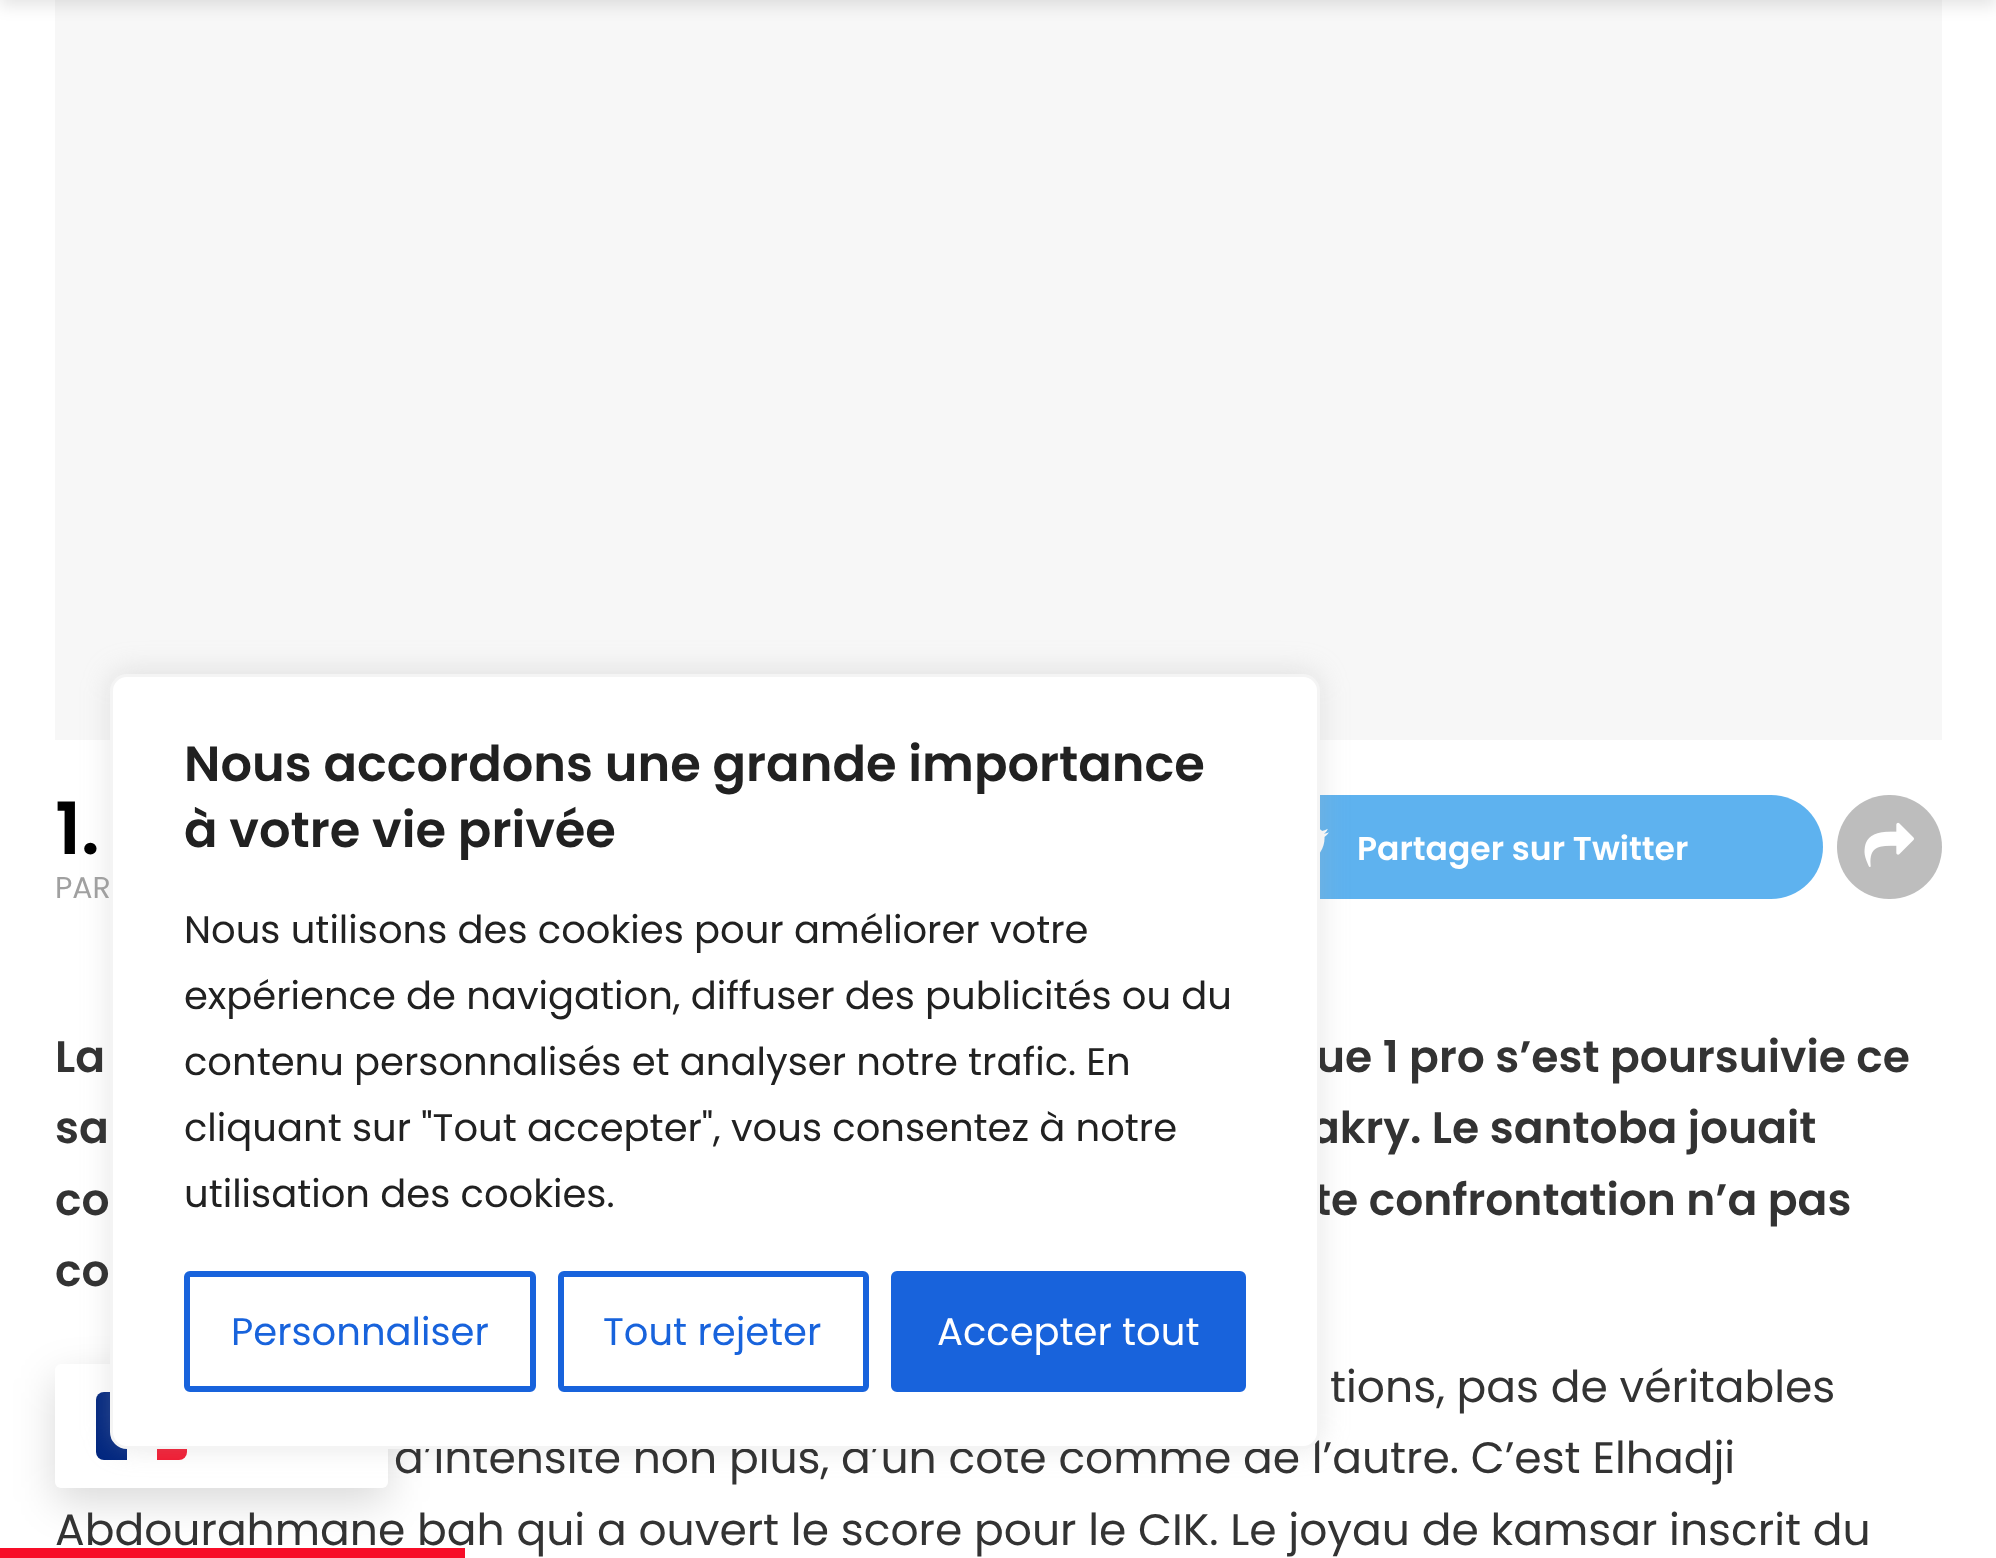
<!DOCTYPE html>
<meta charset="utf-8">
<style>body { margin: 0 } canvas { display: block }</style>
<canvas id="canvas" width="1996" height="1558"></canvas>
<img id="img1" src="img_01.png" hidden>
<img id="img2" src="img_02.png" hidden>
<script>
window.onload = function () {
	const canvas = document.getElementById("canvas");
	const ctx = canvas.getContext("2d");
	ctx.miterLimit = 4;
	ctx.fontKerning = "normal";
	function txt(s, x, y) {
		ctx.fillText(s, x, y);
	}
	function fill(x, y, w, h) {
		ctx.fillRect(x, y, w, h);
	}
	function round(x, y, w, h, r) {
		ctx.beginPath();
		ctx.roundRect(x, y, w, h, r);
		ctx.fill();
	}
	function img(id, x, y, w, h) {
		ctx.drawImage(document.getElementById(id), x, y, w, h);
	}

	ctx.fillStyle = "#FFFFFF";
	fill(0, 0, 1996, 1558);
	ctx.fillStyle = "#F7F7F7";
	fill(55, 0, 1887, 740);
	ctx.fillStyle = "#5EB2EF";
	round(1150, 795, 673, 104, 52);
	img("img1", 1320, 828, 9, 25);
	ctx.fillStyle = "rgba(0, 0, 0, 0.15)";
	ctx.filter = "blur(20.5px)";
	ctx.beginPath();
	ctx.roundRect(55, 1378, 333, 124, 6);
	ctx.fill();
	ctx.filter = "none";
	ctx.fillStyle = "#FFFFFF";
	round(55, 1364, 333, 124, 6);
	ctx.fillStyle = "#00267F";
	ctx.beginPath();
	ctx.roundRect(96, 1392, 31, 68, [8, 0, 0, 8]);
	ctx.fill();
	ctx.fillStyle = "#F31830";
	ctx.beginPath();
	ctx.roundRect(157, 1392, 30, 68, [0, 8, 8, 0]);
	ctx.fill();
	ctx.fillStyle = "rgba(172, 171, 171, 0.3)";
	ctx.filter = "blur(14px)";
	ctx.beginPath();
	ctx.roundRect(110, 671, 1210, 776, 17);
	ctx.fill();
	ctx.filter = "none";
	ctx.fillStyle = "rgba(0, 0, 0, 0.1)";
	ctx.filter = "blur(8px)";
	ctx.beginPath();
	ctx.rect(0, -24, 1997, 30);
	ctx.fill();
	ctx.filter = "none";
	ctx.fillStyle = "#BDBDBD";
	round(1837, 795, 105, 104, 52);
	img("img2", 1864, 822, 50, 45);
	ctx.font = "600 72px Poppins";
	ctx.fillStyle = "#000000";
	txt("1.", 55, 854);
	ctx.font = "30px Poppins";
	ctx.fillStyle = "#A0A0A0";
	txt("PAR", 55, 898);
	ctx.font = "600 33px Poppins";
	ctx.fillStyle = "#FFFFFF";
	txt("Partager sur Twitter", 1357, 860);
	ctx.font = "600 44px Poppins";
	ctx.fillStyle = "#333333";
	txt("La", 55, 1072);
	txt("ue 1 pro s’est poursuivie ce", 1316, 1072);
	txt("sa", 55, 1143);
	txt("akry. Le santoba jouait", 1310, 1143);
	txt("co", 55, 1215);
	txt("te confrontation n’a pas", 1314, 1215);
	txt("co", 55, 1286);
	ctx.font = "44px Poppins";
	txt("tions, pas de véritables", 1330, 1402);
	txt("d’intensité non plus, d’un côté comme de l’autre. C’est Elhadji", 394, 1473);
	ctx.fillStyle = "#FFFFFF";
	ctx.beginPath();
	ctx.roundRect(111.5, 675.5, 1207, 772, 15.5);
	ctx.fill();
	ctx.strokeStyle = "#F4F4F4";
	ctx.lineWidth = 3;
	ctx.stroke();
	ctx.fillStyle = "#1863DC";
	ctx.beginPath();
	ctx.roundRect(894, 1274, 349, 115, 3);
	ctx.fill();
	ctx.strokeStyle = "#1863DC";
	ctx.lineWidth = 6;
	ctx.stroke();
	ctx.font = "38.5px Poppins";
	ctx.fillStyle = "#FFFFFF";
	txt("Accepter tout", 937, 1345);
	ctx.beginPath();
	ctx.roundRect(561, 1274, 305, 115, 3);
	ctx.stroke();
	ctx.fillStyle = "#1863DC";
	txt("Tout rejeter", 603, 1345);
	ctx.beginPath();
	ctx.roundRect(187, 1274, 346, 115, 3);
	ctx.stroke();
	txt("Personnaliser", 231, 1345);
	ctx.fillStyle = "#212121";
	txt("utilisation des cookies.", 184, 1207);
	txt("cliquant sur \"Tout accepter\", vous consentez à notre", 184, 1141);
	txt("contenu personnalisés et analyser notre trafic. En", 184, 1075);
	txt("expérience de navigation, diffuser des publicités ou du", 184, 1009);
	txt("Nous utilisons des cookies pour améliorer votre", 184, 943);
	ctx.font = "600 49.5px Poppins";
	txt("à votre vie privée", 184, 847);
	txt("Nous accordons une grande importance", 184, 781);
	ctx.font = "44px Poppins";
	ctx.fillStyle = "#333333";
	txt("Abdourahmane bah qui a ouvert le score pour le CIK. Le joyau de kamsar inscrit du", 55, 1545);
	ctx.fillStyle = "#F70D28";
	fill(0, 1548, 465, 10);
};
</script>
